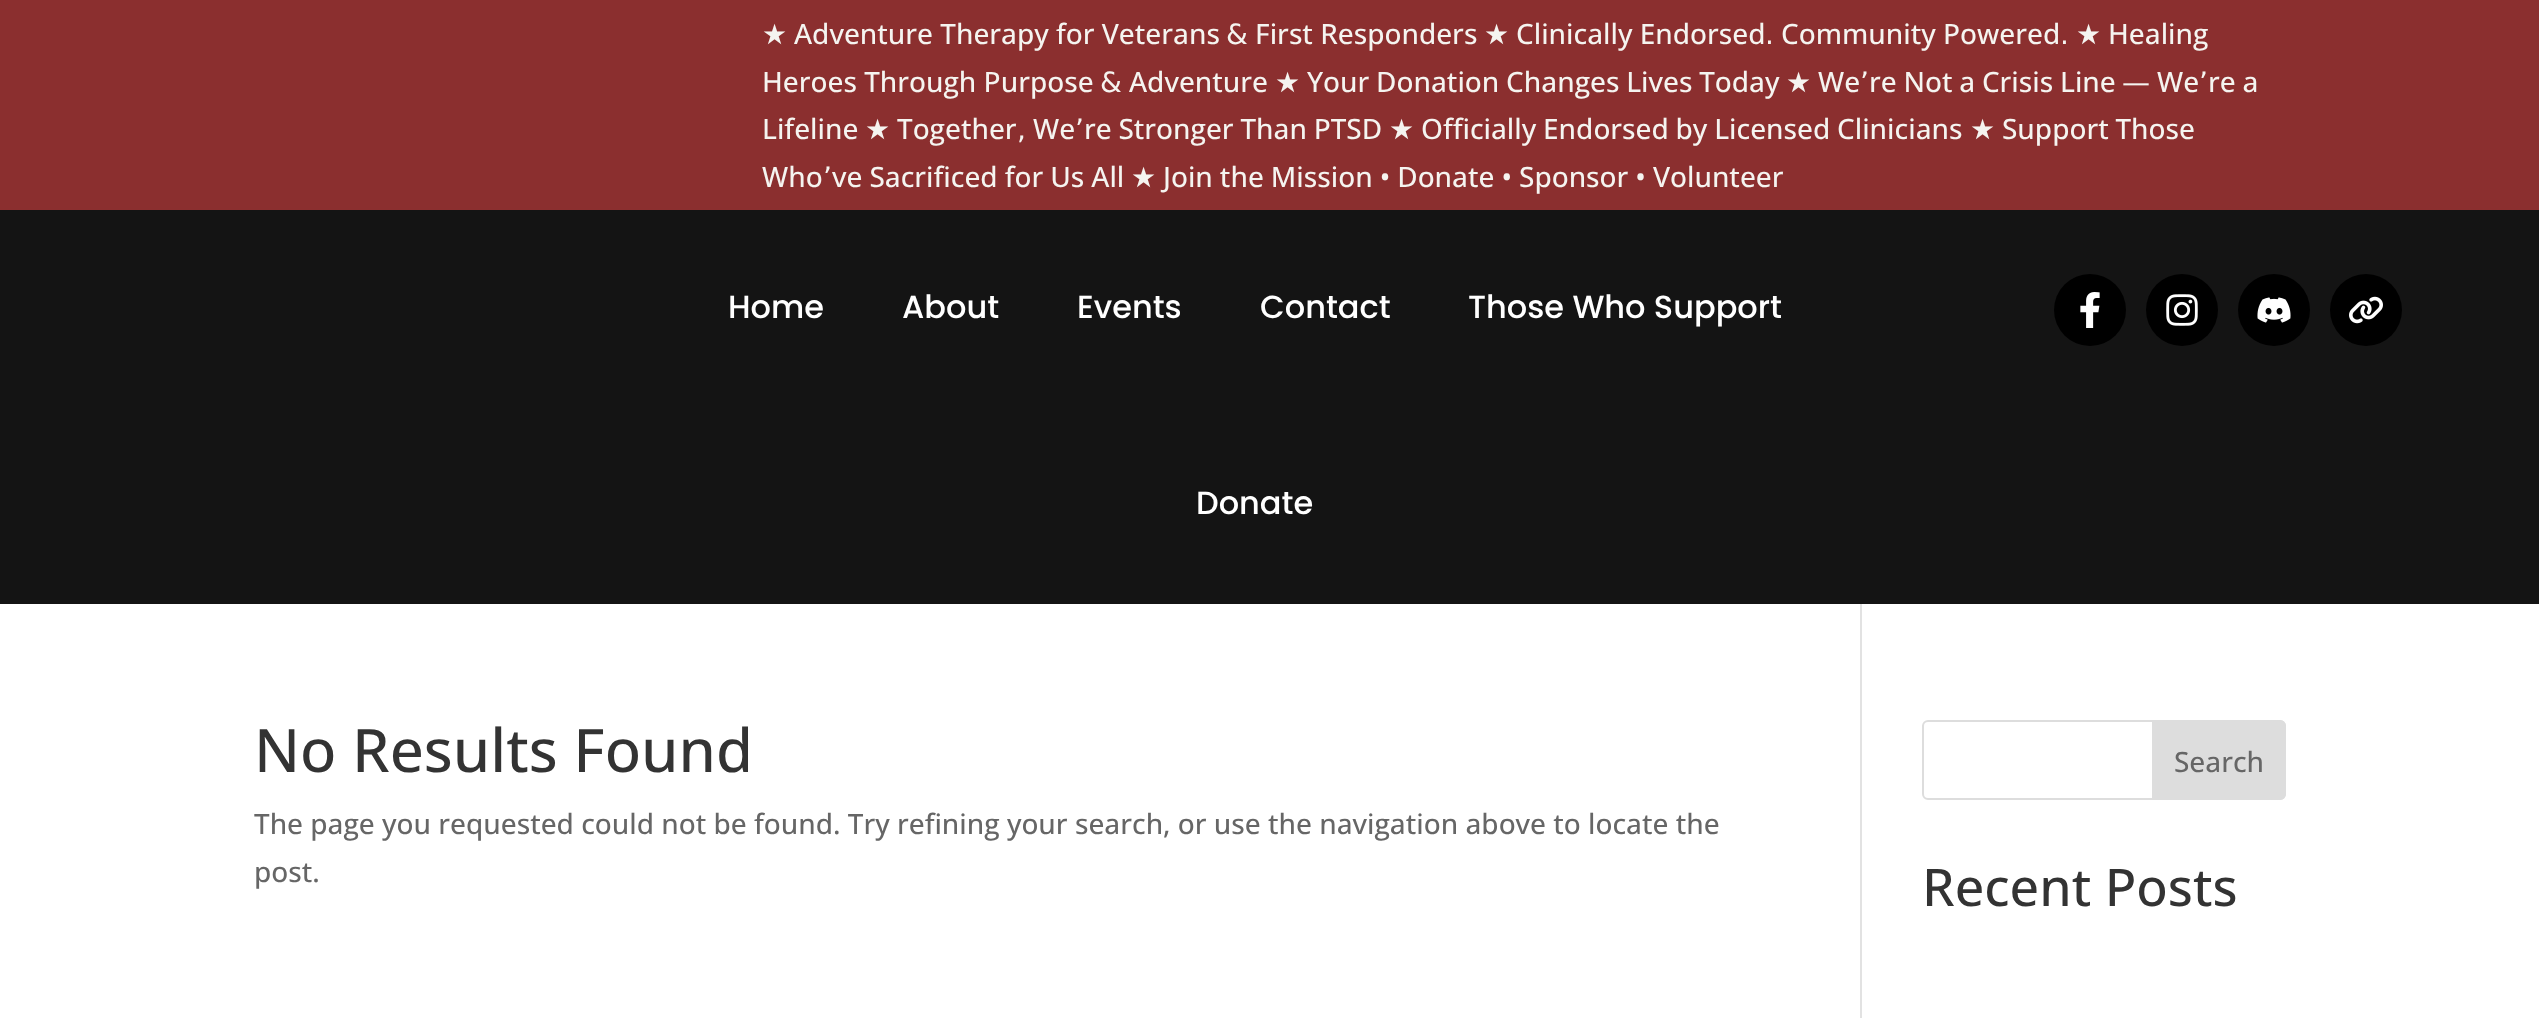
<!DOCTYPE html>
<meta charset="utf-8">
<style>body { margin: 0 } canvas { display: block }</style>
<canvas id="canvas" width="2539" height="1018"></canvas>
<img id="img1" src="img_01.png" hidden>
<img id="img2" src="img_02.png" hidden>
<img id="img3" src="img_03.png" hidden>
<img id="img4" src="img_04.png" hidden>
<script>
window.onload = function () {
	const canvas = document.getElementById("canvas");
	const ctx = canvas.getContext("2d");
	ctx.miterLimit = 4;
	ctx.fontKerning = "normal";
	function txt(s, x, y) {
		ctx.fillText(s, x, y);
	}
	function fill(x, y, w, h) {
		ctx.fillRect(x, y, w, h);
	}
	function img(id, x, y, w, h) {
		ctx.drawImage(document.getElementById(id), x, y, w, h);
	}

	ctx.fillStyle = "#FFFFFF";
	fill(0, 0, 2539, 1018);
	ctx.fillStyle = "#8B2F2F";
	fill(0, 0, 2539, 210);
	ctx.fillStyle = "#141414";
	fill(0, 210, 2539, 394);
	ctx.fillStyle = "#000000";
	ctx.beginPath();
	ctx.arc(2090, 310, 36, 0, Math.PI * 2);
	ctx.fill();
	img("img1", 2080, 292, 20, 36);
	ctx.beginPath();
	ctx.arc(2182, 310, 36, 0, Math.PI * 2);
	ctx.fill();
	img("img2", 2166, 294, 32, 32);
	ctx.beginPath();
	ctx.arc(2274, 310, 36, 0, Math.PI * 2);
	ctx.fill();
	img("img3", 2257, 297, 34, 26);
	ctx.beginPath();
	ctx.arc(2366, 310, 36, 0, Math.PI * 2);
	ctx.fill();
	img("img4", 2349, 296, 34, 28);
	ctx.fillStyle = "#E2E2E2";
	fill(1860, 604, 2, 414);
	ctx.beginPath();
	ctx.roundRect(1923, 721, 362, 78, 5);
	ctx.strokeStyle = "#DDDDDD";
	ctx.lineWidth = 2;
	ctx.stroke();
	ctx.fillStyle = "#DDDDDD";
	ctx.beginPath();
	ctx.roundRect(2153, 721, 132, 78, [0, 5, 5, 0]);
	ctx.fill();
	ctx.stroke();
	ctx.font = "28px DejaVu Sans";
	ctx.fillStyle = "#F5F4F0";
	txt("★", 762, 44);
	ctx.font = "500 28px Open Sans";
	txt("Adventure Therapy for Veterans", 794, 44);
	ctx.font = "28px DejaVu Sans";
	txt("&", 1226, 44);
	ctx.font = "500 28px Open Sans";
	txt("First Responders", 1255, 44);
	ctx.font = "28px DejaVu Sans";
	txt("★", 1484, 44);
	ctx.font = "500 28px Open Sans";
	txt("Clinically Endorsed", 1516, 44);
	ctx.font = "28px DejaVu Sans";
	txt(".", 1765, 44);
	ctx.font = "500 28px Open Sans";
	txt("Community Powered", 1781, 44);
	ctx.font = "28px DejaVu Sans";
	txt(".", 2060, 44);
	txt("★", 2076, 44);
	ctx.font = "500 28px Open Sans";
	txt("Healing", 2108, 44);
	txt("Heroes Through Purpose", 762, 92);
	ctx.font = "28px DejaVu Sans";
	txt("&", 1100, 92);
	ctx.font = "500 28px Open Sans";
	txt("Adventure", 1129, 92);
	ctx.font = "28px DejaVu Sans";
	txt("★", 1275, 92);
	ctx.wordSpacing = "-0.5px";
	ctx.font = "500 28px Open Sans";
	txt("Your Donation Changes Lives Today", 1307, 92);
	ctx.wordSpacing = "0px";
	ctx.font = "28px DejaVu Sans";
	txt("★", 1786, 92);
	ctx.font = "500 28px Open Sans";
	txt("We", 1818, 92);
	ctx.font = "28px DejaVu Sans";
	txt("’", 1860, 92);
	ctx.wordSpacing = "-0.5px";
	ctx.font = "500 28px Open Sans";
	txt("re Not a Crisis Line", 1869, 92);
	ctx.wordSpacing = "0px";
	ctx.font = "28px DejaVu Sans";
	txt("—", 2122, 92);
	ctx.font = "500 28px Open Sans";
	txt("We", 2157, 92);
	ctx.font = "28px DejaVu Sans";
	txt("’", 2199, 92);
	ctx.wordSpacing = "-0.5px";
	ctx.font = "500 28px Open Sans";
	txt("re a", 2208, 92);
	ctx.wordSpacing = "0px";
	txt("Lifeline", 762, 139);
	ctx.font = "28px DejaVu Sans";
	txt("★", 865, 139);
	ctx.font = "500 28px Open Sans";
	txt("Together", 897, 139);
	ctx.font = "28px DejaVu Sans";
	txt(",", 1017, 139);
	ctx.font = "500 28px Open Sans";
	txt("We", 1033, 139);
	ctx.font = "28px DejaVu Sans";
	txt("’", 1075, 139);
	ctx.wordSpacing = "-0.5px";
	ctx.font = "500 28px Open Sans";
	txt("re Stronger Than PTSD", 1084, 139);
	ctx.wordSpacing = "0px";
	ctx.font = "28px DejaVu Sans";
	txt("★", 1389, 139);
	ctx.wordSpacing = "-0.5px";
	ctx.font = "500 28px Open Sans";
	txt("Officially Endorsed by Licensed Clinicians", 1421, 139);
	ctx.wordSpacing = "0px";
	ctx.font = "28px DejaVu Sans";
	txt("★", 1970, 139);
	ctx.wordSpacing = "-0.5px";
	ctx.font = "500 28px Open Sans";
	txt("Support Those", 2002, 139);
	ctx.wordSpacing = "0px";
	txt("Who", 762, 187);
	ctx.font = "28px DejaVu Sans";
	txt("’", 823, 187);
	ctx.wordSpacing = "-0.25px";
	ctx.font = "500 28px Open Sans";
	txt("ve Sacrificed for Us All", 832, 187);
	ctx.wordSpacing = "0px";
	ctx.font = "28px DejaVu Sans";
	txt("★", 1131, 187);
	ctx.wordSpacing = "-0.25px";
	ctx.font = "500 28px Open Sans";
	txt("Join the Mission • Donate • Sponsor • Volunteer", 1163, 187);
	ctx.wordSpacing = "0px";
	ctx.font = "500 32px Poppins";
	ctx.fillStyle = "#FFFFFF";
	txt("Home", 728, 318);
	txt("About", 902, 318);
	txt("Events", 1077, 318);
	txt("Contact", 1260, 318);
	txt("Those Who Support", 1468, 318);
	txt("Donate", 1196, 514);
	ctx.font = "500 60px Open Sans";
	ctx.fillStyle = "#333333";
	txt("No Results Found", 254, 772);
	ctx.font = "500 28px Open Sans";
	ctx.fillStyle = "#666666";
	txt("The page you requested could not be found. Try refining your search, or use the navigation above to locate the", 254, 834);
	txt("post.", 254, 882);
	txt("Search", 2174, 772);
	ctx.font = "500 52px Open Sans";
	ctx.fillStyle = "#333333";
	txt("Recent Posts", 1922, 906);
};
</script>
